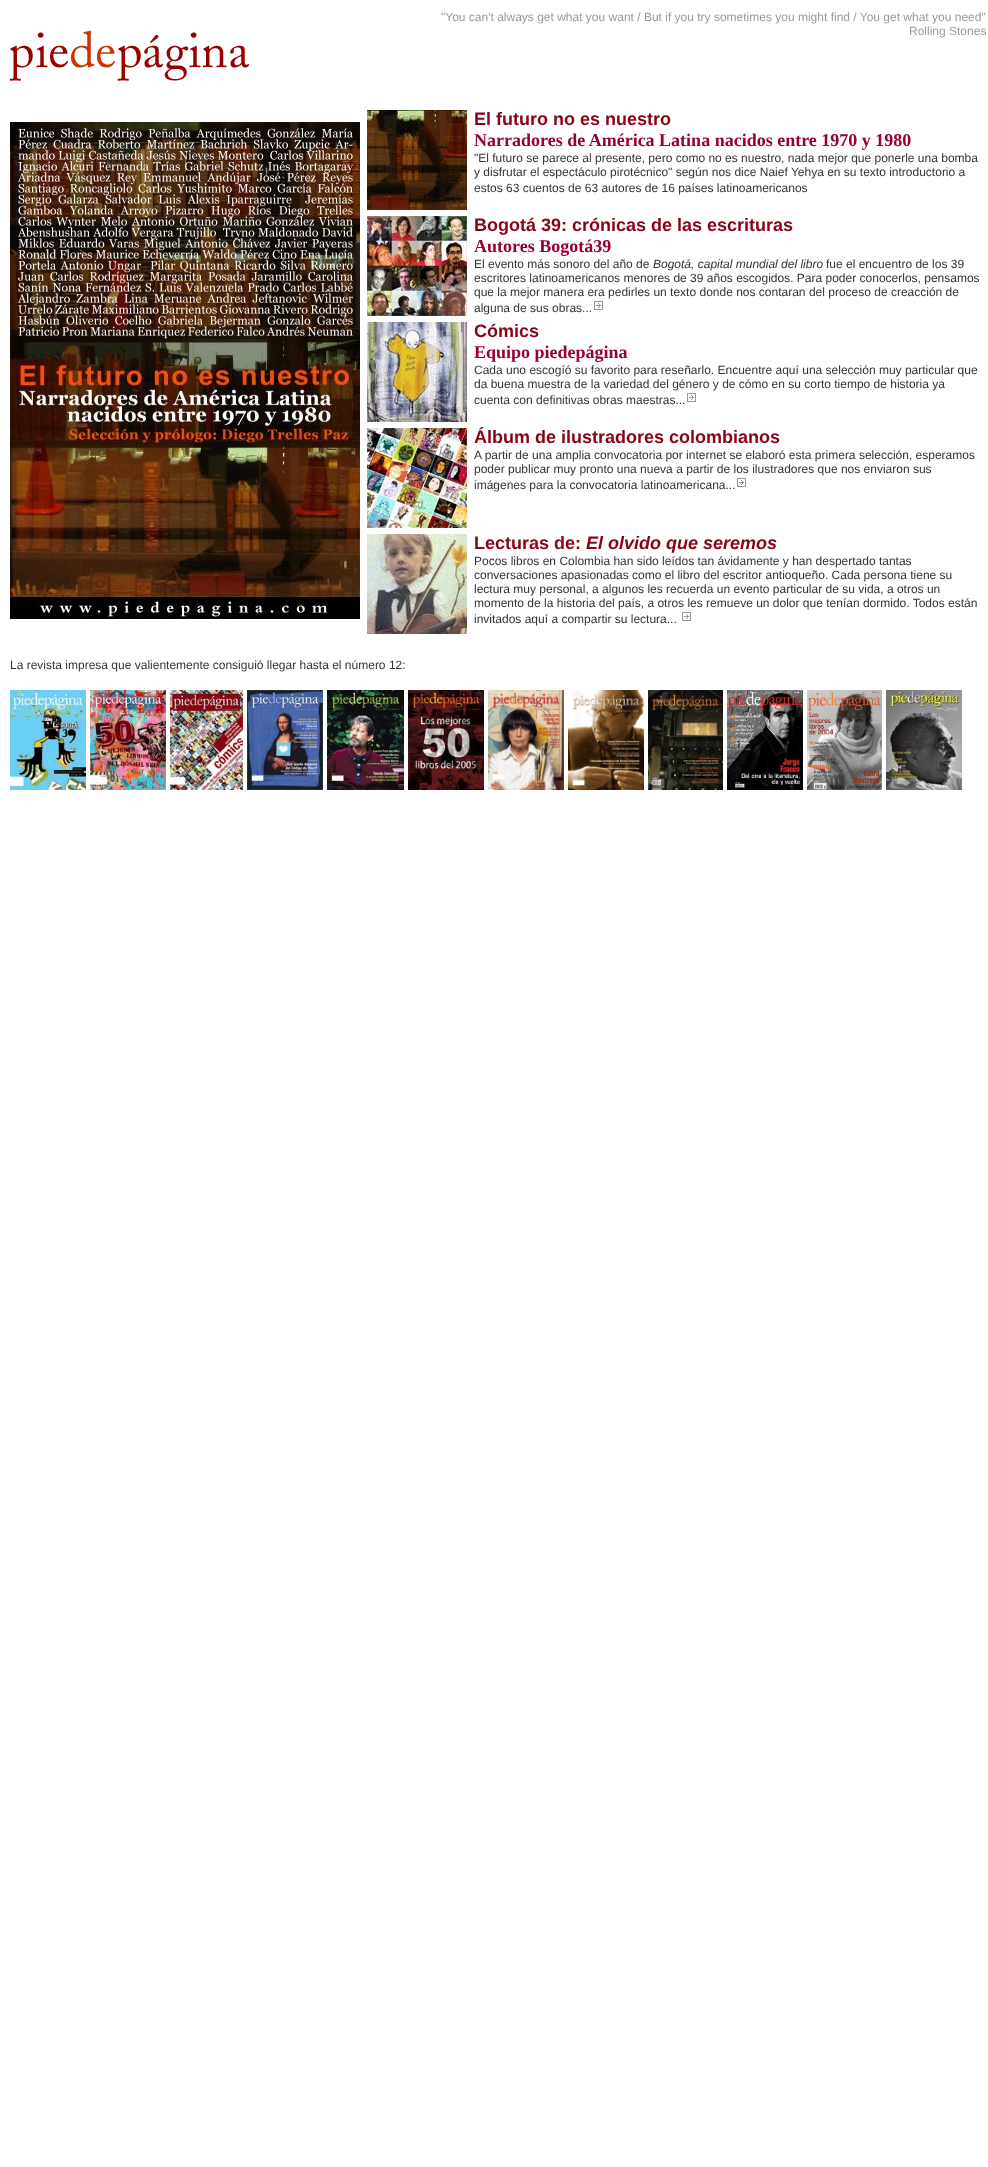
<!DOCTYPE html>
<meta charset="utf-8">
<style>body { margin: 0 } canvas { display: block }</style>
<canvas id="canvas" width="988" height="2167"></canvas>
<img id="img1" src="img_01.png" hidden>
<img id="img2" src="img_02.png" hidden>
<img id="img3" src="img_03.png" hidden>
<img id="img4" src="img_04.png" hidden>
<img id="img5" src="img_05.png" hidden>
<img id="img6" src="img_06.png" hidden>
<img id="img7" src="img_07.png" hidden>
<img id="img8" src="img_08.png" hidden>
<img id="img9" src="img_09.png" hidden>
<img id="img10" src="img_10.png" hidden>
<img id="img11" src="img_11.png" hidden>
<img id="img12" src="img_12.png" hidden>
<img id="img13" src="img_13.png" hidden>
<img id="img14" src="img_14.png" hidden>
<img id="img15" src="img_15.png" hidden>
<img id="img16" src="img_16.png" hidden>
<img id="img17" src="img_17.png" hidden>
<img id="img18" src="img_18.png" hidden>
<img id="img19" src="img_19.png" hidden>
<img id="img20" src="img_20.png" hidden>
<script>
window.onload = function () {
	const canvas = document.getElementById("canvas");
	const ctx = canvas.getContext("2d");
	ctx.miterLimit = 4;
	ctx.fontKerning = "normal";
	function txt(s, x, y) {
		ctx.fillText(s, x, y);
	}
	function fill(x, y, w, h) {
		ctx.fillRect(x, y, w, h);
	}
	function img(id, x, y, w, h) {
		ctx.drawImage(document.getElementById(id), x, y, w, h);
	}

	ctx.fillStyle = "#FFFFFF";
	fill(0, 0, 988, 2167);
	img("img1", 10, 30, 240, 51);
	img("img2", 10, 122, 350, 497);
	img("img3", 367, 110, 100, 100);
	img("img4", 367, 216, 100, 100);
	img("img5", 594, 301, 9, 9);
	img("img6", 367, 322, 100, 100);
	img("img5", 687, 393, 9, 9);
	img("img7", 367, 428, 100, 100);
	img("img5", 737, 478, 9, 9);
	img("img8", 367, 534, 100, 100);
	img("img5", 682, 612, 9, 9);
	img("img9", 10, 690, 76, 100);
	img("img10", 90, 690, 76, 100);
	img("img11", 170, 690, 73, 100);
	img("img12", 247, 690, 76, 100);
	img("img13", 327, 690, 77, 100);
	img("img14", 408, 690, 76, 100);
	img("img15", 488, 690, 76, 100);
	img("img16", 568, 690, 76, 100);
	img("img17", 648, 690, 75, 100);
	img("img18", 727, 690, 76, 100);
	img("img19", 807, 690, 75, 100);
	img("img20", 886, 690, 76, 100);
	ctx.font = "12px Liberation Sans";
	ctx.fillStyle = "#999999";
	txt("\"You can't always get what you want / But if you try sometimes you might find / You get what you need\"", 441, 21);
	txt("Rolling Stones", 909, 35);
	ctx.font = "bold 18px Liberation Sans";
	ctx.fillStyle = "#8B0216";
	txt("El futuro no es nuestro", 474, 125);
	ctx.font = "bold 18px Liberation Serif";
	ctx.fillStyle = "#990033";
	txt("Narradores de América Latina nacidos entre 1970 y 1980", 474, 146);
	ctx.font = "12px Liberation Sans";
	ctx.fillStyle = "#333333";
	txt("\"El futuro se parece al presente, pero como no es nuestro, nada mejor que ponerle una bomba", 474, 162);
	txt("y disfrutar el espectáculo pirotécnico\" según nos dice Naief Yehya en su texto introductorio a", 474, 176);
	txt("estos 63 cuentos de 63 autores de 16 países latinoamericanos", 474, 192);
	ctx.font = "bold 18px Liberation Sans";
	ctx.fillStyle = "#8B0216";
	txt("Bogotá 39: crónicas de las escrituras", 474, 231);
	ctx.font = "bold 18px Liberation Serif";
	ctx.fillStyle = "#990033";
	txt("Autores Bogotá39", 474, 252);
	ctx.font = "12px Liberation Sans";
	ctx.fillStyle = "#333333";
	txt("El evento más sonoro del año de", 474, 268);
	ctx.font = "italic 12px Liberation Sans";
	txt("Bogotá, capital mundial del libro", 653, 268);
	ctx.font = "12px Liberation Sans";
	txt("fue el encuentro de los 39", 826, 268);
	txt("escritores latinoamericanos menores de 39 años escogidos. Para poder conocerlos, pensamos", 474, 282);
	txt("que la mejor manera era pedirles un texto donde nos contaran del proceso de creacción de", 474, 296);
	txt("alguna de sus obras...", 474, 312);
	ctx.font = "bold 18px Liberation Sans";
	ctx.fillStyle = "#8B0216";
	txt("Cómics", 474, 337);
	ctx.font = "bold 18px Liberation Serif";
	ctx.fillStyle = "#990033";
	txt("Equipo piedepágina", 474, 358);
	ctx.font = "12px Liberation Sans";
	ctx.fillStyle = "#333333";
	txt("Cada uno escogíó su favorito para reseñarlo. Encuentre aquí una selección muy particular que", 474, 374);
	txt("da buena muestra de la variedad del género y de cómo en su corto tiempo de historia ya", 474, 388);
	txt("cuenta con definitivas obras maestras...", 474, 404);
	ctx.font = "bold 18px Liberation Sans";
	ctx.fillStyle = "#8B0216";
	txt("Álbum de ilustradores colombianos", 474, 443);
	ctx.font = "12px Liberation Sans";
	ctx.fillStyle = "#333333";
	txt("A partir de una amplia convocatoria por internet se elaboró esta primera selección, esperamos", 474, 459);
	txt("poder publicar muy pronto una nueva a partir de los ilustradores que nos enviaron sus", 474, 473);
	txt("imágenes para la convocatoria latinoamericana...", 474, 489);
	ctx.font = "bold 18px Liberation Sans";
	ctx.fillStyle = "#8B0216";
	txt("Lecturas de:", 474, 549);
	ctx.font = "italic bold 18px Liberation Sans";
	txt("El olvido que seremos", 586, 549);
	ctx.font = "12px Liberation Sans";
	ctx.fillStyle = "#333333";
	txt("Pocos libros en Colombia han sido leídos tan ávidamente y han despertado tantas", 474, 565);
	txt("conversaciones apasionadas como el libro del escritor antioqueño. Cada persona tiene su", 474, 579);
	txt("lectura muy personal, a algunos les recuerda un evento particular de su vida, a otros un", 474, 593);
	txt("momento de la historia del país, a otros les remueve un dolor que tenían dormido. Todos están", 474, 607);
	txt("invitados aquí a compartir su lectura...", 474, 623);
	txt("La revista impresa que valientemente consiguió llegar hasta el número 12:", 10, 669);
};
</script>
